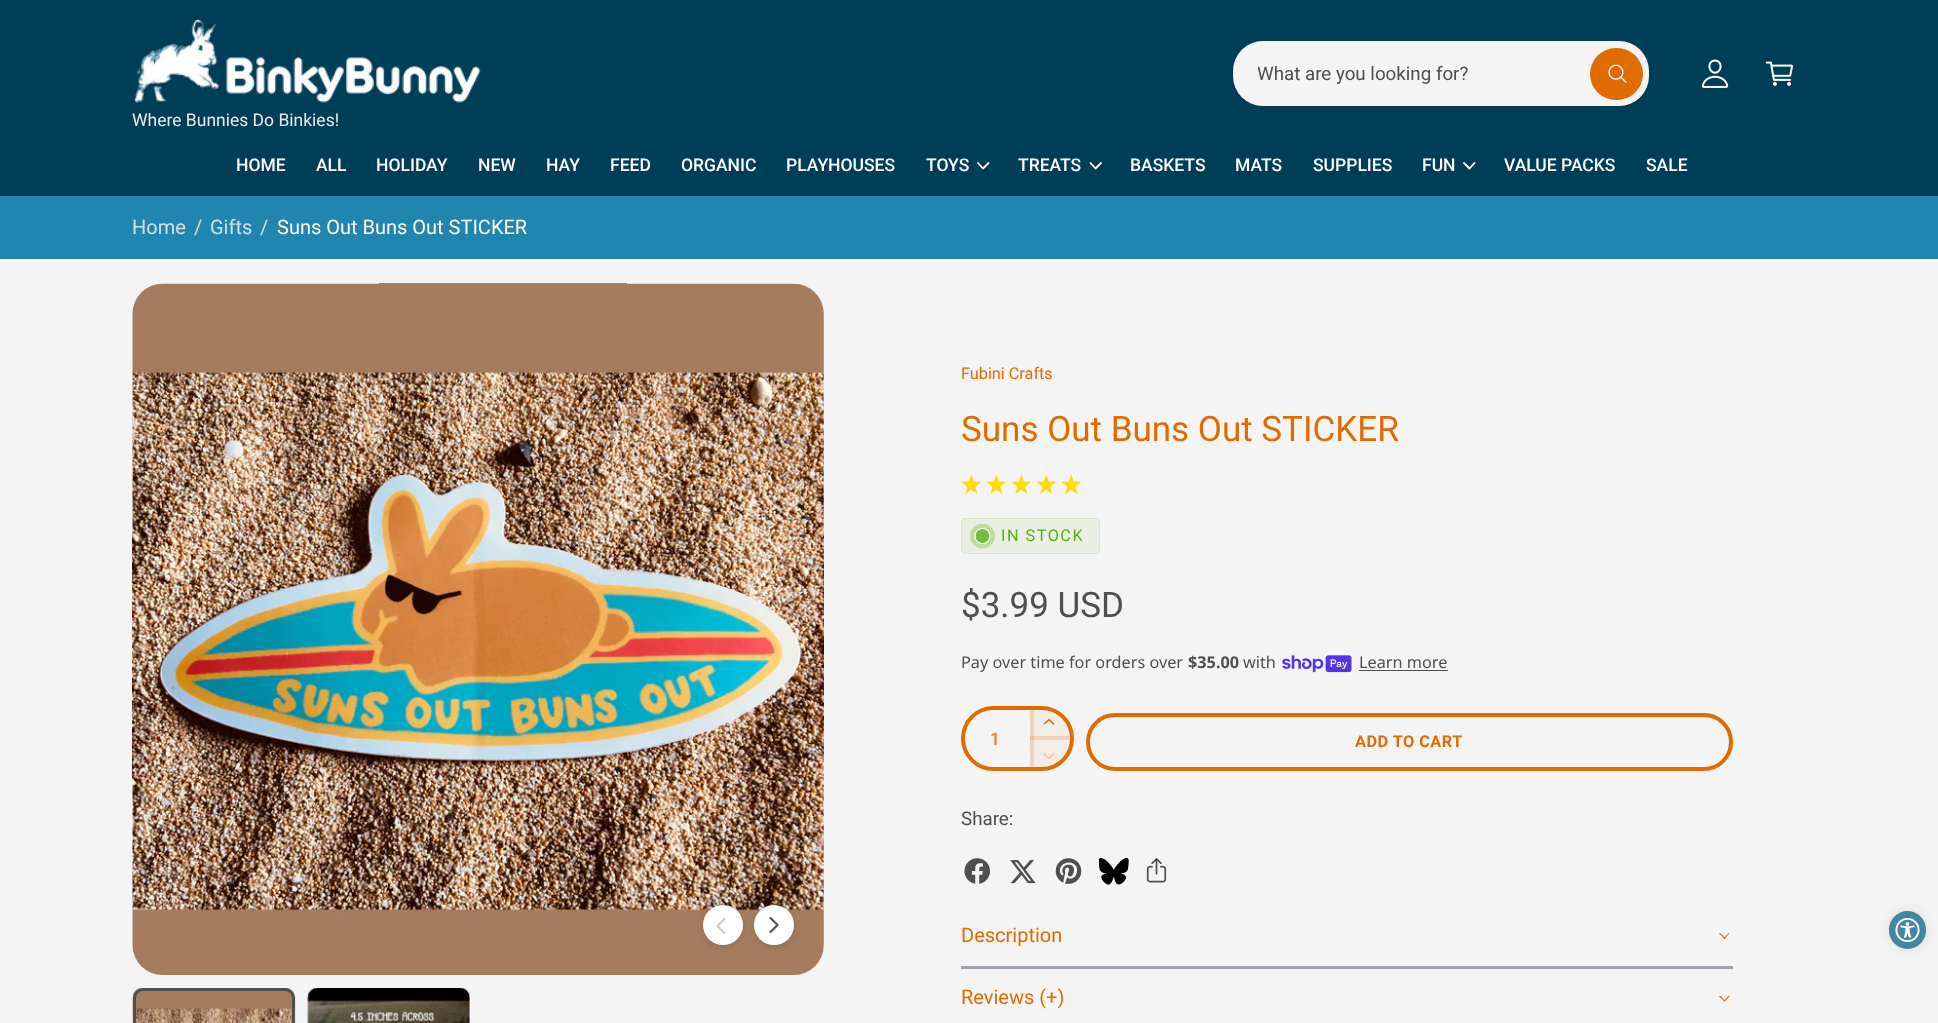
<!DOCTYPE html>
<meta charset="utf-8">
<style>body { margin: 0 } canvas { display: block }</style>
<canvas id="canvas" width="1938" height="1023"></canvas>
<img id="img1" src="img_01.png" hidden>
<img id="img2" src="img_02.png" hidden>
<img id="img3" src="img_03.png" hidden>
<img id="img4" src="img_04.png" hidden>
<img id="img5" src="img_05.png" hidden>
<img id="img6" src="img_06.png" hidden>
<img id="img7" src="img_07.png" hidden>
<img id="img8" src="img_08.png" hidden>
<img id="img9" src="img_09.png" hidden>
<img id="img10" src="img_10.png" hidden>
<img id="img11" src="img_11.png" hidden>
<img id="img12" src="img_12.png" hidden>
<img id="img13" src="img_13.png" hidden>
<img id="img14" src="img_14.png" hidden>
<img id="img15" src="img_15.png" hidden>
<script>
window.onload = function () {
	const canvas = document.getElementById("canvas");
	const ctx = canvas.getContext("2d");
	ctx.miterLimit = 4;
	ctx.fontKerning = "normal";
	function txt(s, x, y) {
		ctx.fillText(s, x, y);
	}
	function fill(x, y, w, h) {
		ctx.fillRect(x, y, w, h);
	}
	function round(x, y, w, h, r) {
		ctx.beginPath();
		ctx.roundRect(x, y, w, h, r);
		ctx.fill();
	}
	function img(id, x, y, w, h) {
		ctx.drawImage(document.getElementById(id), x, y, w, h);
	}

	ctx.fillStyle = "#F4F4F4";
	fill(0, 0, 1938, 1023);
	ctx.fillStyle = "#003E57";
	fill(0, 0, 1938, 196);
	ctx.fillStyle = "#F4F4F4";
	round(1233, 41, 416, 65, 30);
	ctx.fillStyle = "#E06C00";
	round(1590, 48, 53, 52, 26);
	img("img1", 1608, 64, 19, 19);
	img("img2", 1701, 59, 28, 29);
	img("img3", 1765, 61, 28, 25);
	img("img4", 133, 18, 348, 86);
	ctx.beginPath();
	ctx.moveTo(978, 163);
	ctx.lineTo(983, 168.5);
	ctx.lineTo(988.5, 163);
	ctx.strokeStyle = "#FFFFFF";
	ctx.lineWidth = 1.8;
	ctx.lineCap = "round";
	ctx.lineJoin = "round";
	ctx.stroke();
	ctx.beginPath();
	ctx.moveTo(1090.5, 163);
	ctx.lineTo(1095.5, 168.5);
	ctx.lineTo(1101, 163);
	ctx.stroke();
	ctx.beginPath();
	ctx.moveTo(1464, 163);
	ctx.lineTo(1469.5, 168.5);
	ctx.lineTo(1474.5, 163);
	ctx.stroke();
	ctx.fillStyle = "#2086B0";
	fill(0, 196, 1938, 63);
	img("img5", 132, 283, 692, 692);
	ctx.fillStyle = "rgba(60, 64, 67, 0.15)";
	ctx.filter = "blur(2px)";
	ctx.beginPath();
	ctx.roundRect(701, 905, 43, 43, 21.5);
	ctx.fill();
	ctx.filter = "none";
	ctx.fillStyle = "#FFFFFF";
	ctx.beginPath();
	ctx.arc(723, 925, 20, 0, Math.PI * 2);
	ctx.fill();
	ctx.beginPath();
	ctx.moveTo(724.5, 919);
	ctx.lineTo(717.5, 926);
	ctx.lineTo(724.5, 933);
	ctx.strokeStyle = "#CCCDCE";
	ctx.lineWidth = 2.3;
	ctx.stroke();
	ctx.fillStyle = "rgba(60, 64, 67, 0.15)";
	ctx.filter = "blur(2px)";
	ctx.beginPath();
	ctx.roundRect(753, 905, 42, 43, 21);
	ctx.fill();
	ctx.filter = "none";
	ctx.fillStyle = "#FFFFFF";
	ctx.beginPath();
	ctx.arc(774, 925, 20, 0, Math.PI * 2);
	ctx.fill();
	ctx.beginPath();
	ctx.moveTo(770.5, 932);
	ctx.lineTo(777.5, 925);
	ctx.lineTo(770.5, 918);
	ctx.strokeStyle = "#56585B";
	ctx.stroke();
	img("img6", 132, 988, 164, 35);
	ctx.beginPath();
	ctx.roundRect(134.5, 989.5, 159, 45, 8.5);
	ctx.strokeStyle = "#4F4F4F";
	ctx.lineWidth = 3;
	ctx.lineJoin = "miter";
	ctx.stroke();
	img("img7", 307, 988, 163, 35);
	img("img8", 961, 474, 21, 21);
	img("img8", 986, 474, 21, 21);
	img("img8", 1011, 474, 21, 21);
	img("img8", 1036, 474, 21, 21);
	img("img8", 1061, 474, 21, 21);
	ctx.fillStyle = "#E9EFE4";
	round(961, 518, 139, 36, 4);
	ctx.beginPath();
	ctx.roundRect(961.5, 518.5, 138, 35, 3.5);
	ctx.strokeStyle = "rgba(85, 175, 16, 0.1)";
	ctx.lineWidth = 1;
	ctx.stroke();
	ctx.save();
	ctx.beginPath();
	ctx.rect(970, 524, 25, 25);
	ctx.clip();
	ctx.fillStyle = "#BDDCA4";
	ctx.beginPath();
	ctx.arc(982.5, 536, 12.5, 0, Math.PI * 2);
	ctx.fill();
	ctx.restore();
	ctx.fillStyle = "#74BD3C";
	ctx.beginPath();
	ctx.arc(982.5, 536, 7.5, 0, Math.PI * 2);
	ctx.fill();
	ctx.strokeStyle = "#FFFFFF";
	ctx.lineWidth = 1.2;
	ctx.stroke();
	img("img9", 1282, 655, 70, 18);
	ctx.fillStyle = "#4F4F4F";
	fill(1359, 670, 89, 1);
	ctx.fillStyle = "#F3EDE8";
	ctx.beginPath();
	ctx.roundRect(1030, 706, 40, 34, [0, 30, 0, 0]);
	ctx.fill();
	ctx.fillStyle = "#EFD3BA";
	fill(1030, 706, 4, 34);
	fill(1030, 736, 40, 4);
	ctx.fillStyle = "#ECBE95";
	fill(1030, 736, 4, 4);
	ctx.save();
	ctx.beginPath();
	ctx.moveTo(1057.5, 730);
	ctx.bezierCurveTo(1048, 730, 1040, 722.5, 1040, 712.5);
	ctx.lineTo(1057.5, 712.5);
	ctx.closePath();
	ctx.clip();
	ctx.beginPath();
	ctx.moveTo(1053.5, 724);
	ctx.lineTo(1049, 719.5);
	ctx.lineTo(1044, 724);
	ctx.strokeStyle = "#E06C00";
	ctx.lineWidth = 1.6;
	ctx.lineJoin = "round";
	ctx.stroke();
	ctx.restore();
	ctx.fillStyle = "#F3EDE8";
	ctx.beginPath();
	ctx.roundRect(1030, 740, 40, 31, [0, 0, 30, 0]);
	ctx.fill();
	ctx.fillStyle = "#EFD3BA";
	fill(1030, 740, 4, 31);
	ctx.beginPath();
	ctx.moveTo(1044, 754);
	ctx.lineTo(1049, 758.5);
	ctx.lineTo(1053.5, 754);
	ctx.strokeStyle = "#EDC6A2";
	ctx.lineWidth = 1.6;
	ctx.lineJoin = "round";
	ctx.stroke();
	ctx.beginPath();
	ctx.roundRect(963, 708, 109, 61, 30.5);
	ctx.strokeStyle = "#F4F4F4";
	ctx.lineWidth = 4;
	ctx.lineJoin = "miter";
	ctx.stroke();
	ctx.beginPath();
	ctx.roundRect(963, 708, 109, 61, 30.5);
	ctx.strokeStyle = "#E06C00";
	ctx.stroke();
	ctx.beginPath();
	ctx.roundRect(1088, 715, 643, 54, 27);
	ctx.stroke();
	img("img10", 964, 858, 26, 26);
	img("img11", 1010, 860, 26, 24);
	img("img12", 1055, 858, 27, 26);
	img("img13", 1099, 857, 30, 28);
	img("img14", 1146, 858, 21, 25);
	ctx.fillStyle = "#A1A1AA";
	fill(961, 966, 772, 3);
	ctx.fillStyle = "#E06C00";
	ctx.beginPath();
	ctx.moveTo(1729, 933);
	ctx.lineTo(1729.5, 933.5);
	ctx.lineTo(1724.5, 939);
	ctx.lineTo(1723.5, 938);
	ctx.closePath();
	ctx.fill();
	ctx.beginPath();
	ctx.moveTo(1720, 933);
	ctx.lineTo(1725.5, 938);
	ctx.lineTo(1724.5, 939);
	ctx.lineTo(1719, 933.5);
	ctx.closePath();
	ctx.fill();
	ctx.beginPath();
	ctx.moveTo(1729, 995.5);
	ctx.lineTo(1729.5, 996.5);
	ctx.lineTo(1724.5, 1001.5);
	ctx.lineTo(1723.5, 1001);
	ctx.closePath();
	ctx.fill();
	ctx.beginPath();
	ctx.moveTo(1720, 995.5);
	ctx.lineTo(1725.5, 1001);
	ctx.lineTo(1724.5, 1001.5);
	ctx.lineTo(1719, 996.5);
	ctx.closePath();
	ctx.fill();
	ctx.fillStyle = "rgba(0, 0, 0, 0.1)";
	ctx.filter = "blur(6px)";
	ctx.beginPath();
	ctx.roundRect(1889, 911, 37, 38, 18.5);
	ctx.fill();
	ctx.filter = "none";
	ctx.fillStyle = "#4286A2";
	round(1889, 911, 37, 38, 18.5);
	img("img15", 1895, 918, 25, 25);
	ctx.save();
	ctx.beginPath();
	ctx.rect(1258, 63, 372, 22);
	ctx.clip();
	ctx.font = "18.75px Roboto";
	ctx.fillStyle = "#4F4F4F";
	txt("What are you looking for?", 1257, 80);
	ctx.restore();
	ctx.font = "17.5px Roboto";
	ctx.fillStyle = "#E6ECEE";
	txt("Where Bunnies Do Binkies!", 132, 126);
	ctx.font = "500 17.5px Roboto";
	ctx.fillStyle = "#FFFFFF";
	txt("HOME", 236, 171);
	txt("ALL", 316, 171);
	txt("HOLIDAY", 376, 171);
	txt("NEW", 478, 171);
	txt("HAY", 546, 171);
	txt("FEED", 610, 171);
	txt("ORGANIC", 681, 171);
	txt("PLAYHOUSES", 786, 171);
	txt("TOYS", 926, 171);
	txt("TREATS", 1018, 171);
	txt("BASKETS", 1130, 171);
	txt("MATS", 1235, 171);
	txt("SUPPLIES", 1313, 171);
	txt("FUN", 1422, 171);
	txt("VALUE PACKS", 1504, 171);
	txt("SALE", 1646, 171);
	ctx.font = "20px Roboto";
	ctx.fillStyle = "#D2E1E0";
	txt("Home", 132, 234);
	txt("/", 194, 234);
	txt("Gifts", 210, 234);
	txt("/", 260, 234);
	ctx.fillStyle = "#FFF8EC";
	txt("Suns Out Buns Out STICKER", 277, 234);
	ctx.font = "16.25px Roboto";
	ctx.fillStyle = "#E06C00";
	txt("Fubini Crafts", 961, 379);
	ctx.font = "35px Roboto";
	txt("Suns Out Buns Out STICKER", 961, 441);
	ctx.letterSpacing = "1.5px";
	ctx.font = "16.25px Roboto";
	ctx.fillStyle = "#55AF10";
	txt("IN STOCK", 1001, 541);
	ctx.letterSpacing = "0px";
	ctx.font = "35px Roboto";
	ctx.fillStyle = "#4F4F4F";
	txt("$3.99 USD", 961, 617);
	ctx.font = "16.25px Noto Sans";
	txt("Pay over time for orders over", 961, 668);
	ctx.font = "bold 16.25px Noto Sans";
	txt("$35.00", 1188, 668);
	ctx.font = "16.25px Noto Sans";
	txt("with", 1243, 668);
	txt("Learn more", 1359, 668);
	ctx.font = "500 17.5px Roboto";
	ctx.fillStyle = "#E38025";
	txt("1", 990, 745);
	ctx.letterSpacing = "0.5px";
	ctx.font = "bold 16.25px Roboto";
	ctx.fillStyle = "#E06C00";
	txt("ADD TO CART", 1355, 747);
	ctx.letterSpacing = "0px";
	ctx.font = "18.75px Roboto";
	ctx.fillStyle = "#4F4F4F";
	txt("Share:", 961, 825);
	ctx.font = "20px Roboto";
	ctx.fillStyle = "#E06C00";
	txt("Description", 961, 942);
	txt("Reviews (+)", 961, 1004);
};
</script>
